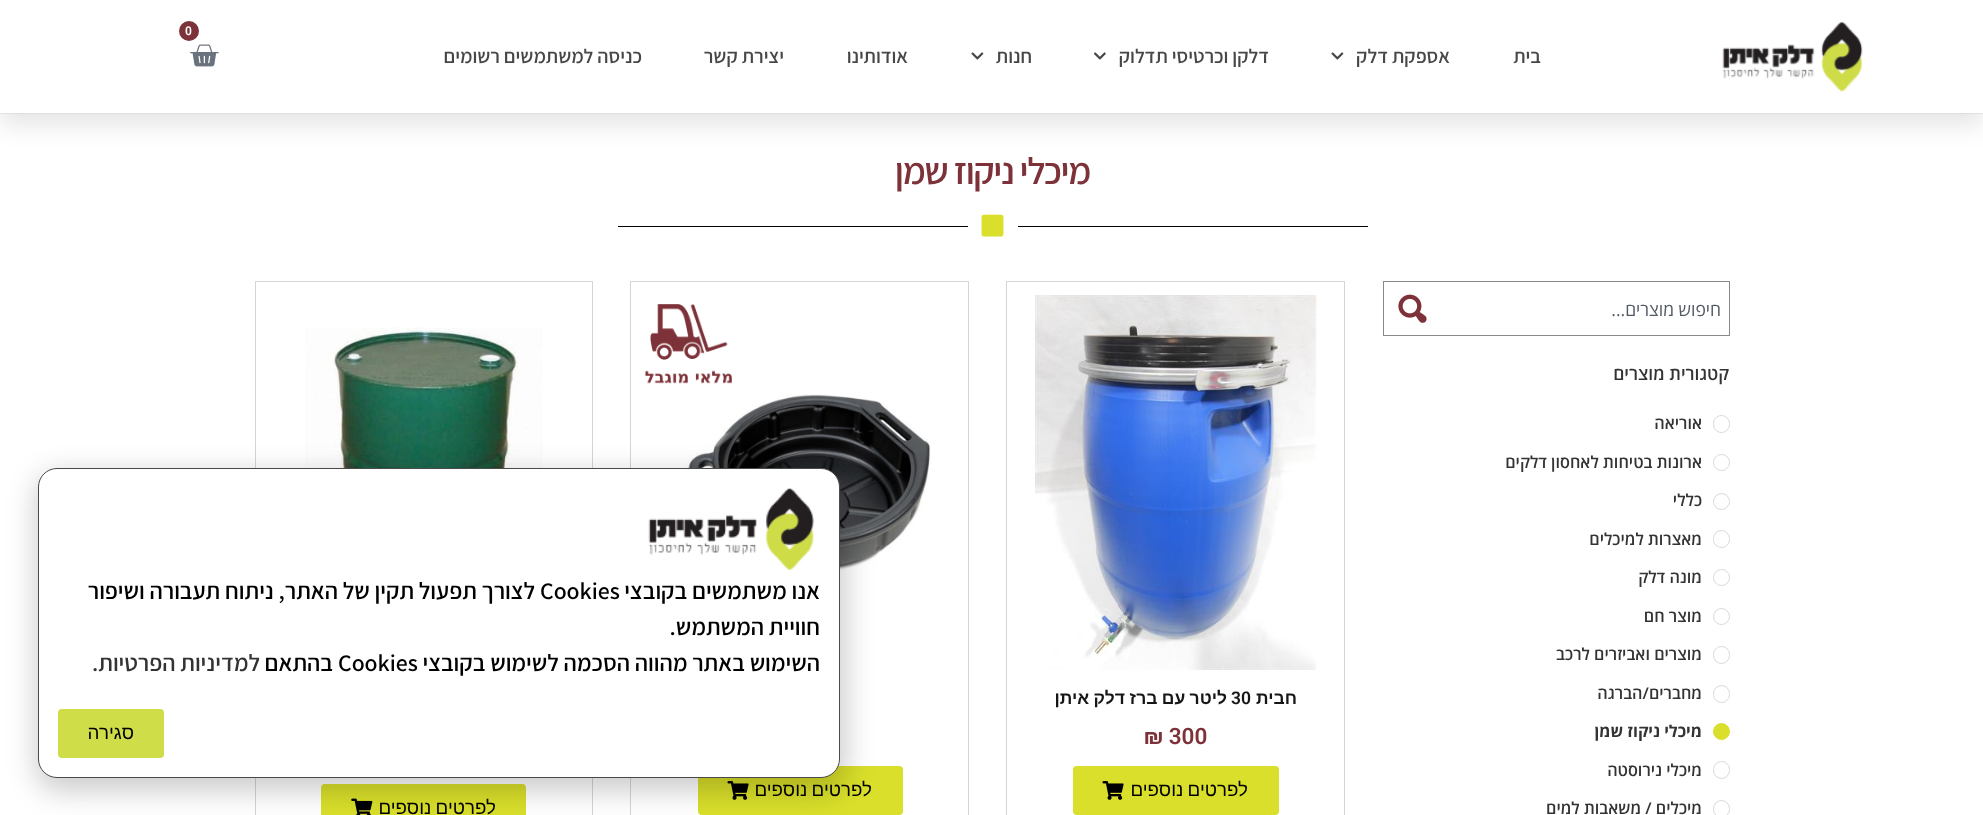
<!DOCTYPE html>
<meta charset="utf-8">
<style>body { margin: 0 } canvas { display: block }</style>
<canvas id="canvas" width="1983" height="815"></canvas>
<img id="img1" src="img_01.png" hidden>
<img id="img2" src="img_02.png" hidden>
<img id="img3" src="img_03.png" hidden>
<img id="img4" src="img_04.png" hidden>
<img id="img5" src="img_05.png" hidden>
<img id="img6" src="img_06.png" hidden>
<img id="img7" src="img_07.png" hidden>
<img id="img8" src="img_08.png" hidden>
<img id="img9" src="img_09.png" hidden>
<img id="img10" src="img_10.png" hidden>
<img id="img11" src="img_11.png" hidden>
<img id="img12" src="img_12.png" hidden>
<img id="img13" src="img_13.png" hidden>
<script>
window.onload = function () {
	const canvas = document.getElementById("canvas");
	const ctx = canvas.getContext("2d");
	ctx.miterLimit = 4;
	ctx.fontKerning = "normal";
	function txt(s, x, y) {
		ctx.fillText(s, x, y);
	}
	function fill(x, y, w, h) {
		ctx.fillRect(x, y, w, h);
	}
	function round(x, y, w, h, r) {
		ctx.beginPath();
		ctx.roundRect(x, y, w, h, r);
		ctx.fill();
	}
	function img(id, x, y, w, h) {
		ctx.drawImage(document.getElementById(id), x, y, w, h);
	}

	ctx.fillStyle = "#FFFFFF";
	fill(0, 0, 1983, 815);
	ctx.fillStyle = "#F1F1F1";
	fill(0, 113, 1983, 1);
	ctx.fillStyle = "rgba(0, 0, 0, 0.1)";
	ctx.filter = "blur(12.5px)";
	ctx.beginPath();
	ctx.rect(0, 13, 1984, 112);
	ctx.fill();
	ctx.filter = "none";
	ctx.fillStyle = "#FFFFFF";
	fill(0, 0, 1983, 113);
	img("img1", 1722, 22, 141, 70);
	ctx.fillStyle = "#7C3238";
	ctx.beginPath();
	ctx.arc(189, 31, 10, 0, Math.PI * 2);
	ctx.fill();
	img("img2", 190, 44, 29, 23);
	img("img3", 1331, 52, 13, 8);
	img("img4", 1094, 52, 12, 8);
	img("img3", 971, 52, 13, 8);
	ctx.fillStyle = "#000000";
	fill(1018, 226, 350, 1);
	img("img5", 981, 214, 23, 23);
	fill(618, 226, 350, 1);
	ctx.fillStyle = "#898989";
	fill(1383, 281, 347, 1);
	fill(1383, 335, 56, 1);
	fill(1383, 281, 1, 55);
	img("img6", 1398, 294, 29, 29);
	fill(1729, 281, 1, 55);
	fill(1439, 335, 291, 1);
	ctx.beginPath();
	ctx.roundRect(1713.5, 415.5, 16, 17, 8);
	ctx.strokeStyle = "#D9D9D9";
	ctx.stroke();
	ctx.beginPath();
	ctx.arc(1721.5, 462.5, 8, 0, Math.PI * 2);
	ctx.stroke();
	ctx.beginPath();
	ctx.arc(1721.5, 501.5, 8, 0, Math.PI * 2);
	ctx.stroke();
	ctx.beginPath();
	ctx.roundRect(1713.5, 530.5, 16, 17, 8);
	ctx.stroke();
	ctx.beginPath();
	ctx.arc(1721.5, 577.5, 8, 0, Math.PI * 2);
	ctx.stroke();
	ctx.beginPath();
	ctx.arc(1721.5, 616.5, 8, 0, Math.PI * 2);
	ctx.stroke();
	ctx.beginPath();
	ctx.roundRect(1713.5, 646.5, 16, 17, 8);
	ctx.stroke();
	ctx.beginPath();
	ctx.roundRect(1713.5, 685.5, 16, 17, 8);
	ctx.stroke();
	ctx.fillStyle = "#D9DF2A";
	ctx.beginPath();
	ctx.arc(1721.5, 731.5, 8, 0, Math.PI * 2);
	ctx.fill();
	ctx.strokeStyle = "#D9DF2A";
	ctx.stroke();
	ctx.beginPath();
	ctx.roundRect(1713.5, 761.5, 16, 17, 8);
	ctx.strokeStyle = "#D9D9D9";
	ctx.stroke();
	ctx.beginPath();
	ctx.roundRect(1713.5, 800.5, 16, 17, 8);
	ctx.stroke();
	ctx.strokeStyle = "#D5D5D5";
	ctx.strokeRect(1006.5, 281.5, 338, 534);
	img("img7", 1035, 295, 282, 375);
	round(1073, 766, 206, 49, 4);
	img("img8", 1102, 781, 22, 19);
	ctx.strokeRect(630.5, 281.5, 338, 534);
	img("img9", 666, 394, 265, 178);
	img("img10", 644, 304, 88, 80);
	round(698, 766, 205, 49, 4);
	img("img8", 727, 781, 22, 19);
	ctx.strokeRect(255.5, 281.5, 337, 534);
	img("img11", 305, 327, 239, 141);
	round(321, 784, 205, 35, 4);
	img("img12", 351, 798, 22, 17);
	ctx.fillStyle = "rgba(0, 0, 0, 0.2)";
	ctx.filter = "blur(14.5px)";
	ctx.beginPath();
	ctx.roundRect(36, 474, 810, 317, 23);
	ctx.fill();
	ctx.filter = "none";
	ctx.fillStyle = "#FFFFFF";
	ctx.beginPath();
	ctx.roundRect(38.5, 468.5, 801, 309, 18.5);
	ctx.fill();
	ctx.strokeStyle = "#4A4A4A";
	ctx.stroke();
	img("img13", 648, 488, 166, 82);
	ctx.fillStyle = "#CEDD48";
	round(58, 709, 106, 49, 4);
	ctx.font = "600 12px Roboto";
	ctx.fillStyle = "#FFFFFF";
	txt("0", 185, 35);
	ctx.direction = "rtl";
	ctx.font = "600 20px Assistant";
	ctx.fillStyle = "#474747";
	txt("בית", 1541, 63);
	txt("אספקת דלק", 1450, 63);
	txt("דלקן וכרטיסי תדלוק", 1269, 63);
	txt("חנות", 1032, 63);
	txt("אודותינו", 908, 63);
	txt("יצירת קשר", 784, 63);
	txt("כניסה למשתמשים רשומים", 642, 63);
	ctx.letterSpacing = "-1.4px";
	ctx.font = "600 37.5px Assistant";
	ctx.fillStyle = "#7C3238";
	txt("מיכלי ניקוז שמן", 1090, 184);
	ctx.letterSpacing = "0px";
	ctx.font = "17.5px Open Sans";
	ctx.fillStyle = "#515962";
	txt("חיפוש מוצרים...", 1721, 316);
	ctx.font = "600 17.5px Open Sans";
	ctx.fillStyle = "#333333";
	txt("קטגורית מוצרים", 1729, 380);
	ctx.font = "600 16.25px Open Sans";
	txt("אוריאה", 1702, 429);
	txt("ארונות בטיחות לאחסון דלקים", 1702, 468);
	txt("כללי", 1702, 506);
	txt("מאצרות למיכלים", 1702, 545);
	txt("מונה דלק", 1702, 583);
	txt("מוצר חם", 1702, 622);
	txt("מוצרים ואביזרים לרכב", 1702, 660);
	txt("מחברים/הברגה", 1702, 699);
	ctx.font = "bold 16.25px Open Sans";
	txt("מיכלי ניקוז שמן", 1702, 737);
	ctx.font = "600 16.25px Open Sans";
	txt("מיכלי נירוסטה", 1702, 776);
	txt("מיכלים / משאבות למים", 1702, 814);
	ctx.font = "bold 17.5px Liberation Sans";
	ctx.fillStyle = "#161616";
	txt("חבית", 1297, 704);
	ctx.direction = "ltr";
	ctx.font = "600 17.5px Roboto";
	txt("30", 1231, 704);
	ctx.wordSpacing = "-0.5px";
	ctx.direction = "rtl";
	ctx.font = "bold 17.5px Liberation Sans";
	txt("ליטר עם ברז דלק איתן", 1227, 704);
	ctx.wordSpacing = "0px";
	ctx.direction = "ltr";
	ctx.font = "600 22.5px Roboto";
	ctx.fillStyle = "#7C3238";
	txt("₪ 300", 1144, 744);
	ctx.wordSpacing = "-1px";
	ctx.direction = "rtl";
	ctx.font = "18.75px Liberation Sans";
	ctx.fillStyle = "#000000";
	txt("לפרטים נוספים", 1248, 796);
	txt("לפרטים נוספים", 872, 796);
	txt("לפרטים נוספים", 496, 814);
	ctx.wordSpacing = "0px";
	ctx.font = "600 23.75px Assistant";
	txt("אנו משתמשים בקובצי", 820, 599);
	ctx.direction = "ltr";
	txt("Cookies", 540, 599);
	ctx.direction = "rtl";
	txt("לצורך תפעול תקין של האתר, ניתוח תעבורה ושיפור", 535, 599);
	txt("חוויית המשתמש.", 820, 635);
	txt("השימוש באתר מהווה הסכמה לשימוש בקובצי", 820, 671);
	ctx.direction = "ltr";
	txt("Cookies", 338, 671);
	ctx.direction = "rtl";
	txt("בהתאם", 333, 671);
	ctx.fillStyle = "#333333";
	txt("למדיניות הפרטיות.", 260, 671);
	ctx.font = "18.75px Liberation Sans";
	ctx.fillStyle = "#000000";
	txt("סגירה", 134, 739);
};
</script>
